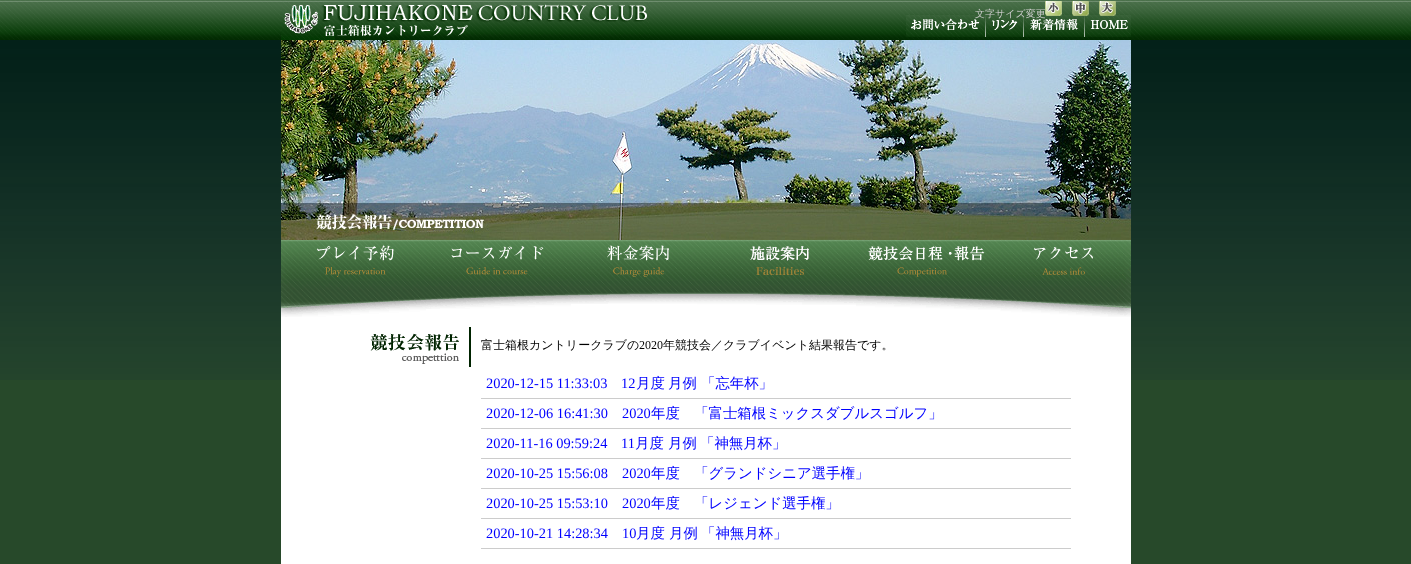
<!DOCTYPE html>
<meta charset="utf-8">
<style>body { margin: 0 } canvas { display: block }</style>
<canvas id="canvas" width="1411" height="564"></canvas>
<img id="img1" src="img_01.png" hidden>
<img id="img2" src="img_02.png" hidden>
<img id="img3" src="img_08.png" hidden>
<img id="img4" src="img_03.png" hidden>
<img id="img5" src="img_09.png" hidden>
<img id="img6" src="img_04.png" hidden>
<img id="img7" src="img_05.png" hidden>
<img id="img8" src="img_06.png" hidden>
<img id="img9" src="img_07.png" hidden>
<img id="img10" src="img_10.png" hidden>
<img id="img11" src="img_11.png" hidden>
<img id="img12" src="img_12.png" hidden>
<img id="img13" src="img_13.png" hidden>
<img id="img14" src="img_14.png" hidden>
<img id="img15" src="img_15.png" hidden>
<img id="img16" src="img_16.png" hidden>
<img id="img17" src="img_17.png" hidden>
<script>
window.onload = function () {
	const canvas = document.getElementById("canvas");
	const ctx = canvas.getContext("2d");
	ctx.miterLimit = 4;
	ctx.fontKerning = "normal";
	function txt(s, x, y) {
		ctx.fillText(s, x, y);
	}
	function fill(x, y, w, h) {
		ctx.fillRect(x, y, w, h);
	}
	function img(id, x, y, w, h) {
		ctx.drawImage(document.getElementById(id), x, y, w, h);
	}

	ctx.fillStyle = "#27492A";
	fill(0, 0, 1411, 564);
	img("img1", 0, 0, 1411, 380);
	img("img2", 281, 2, 368, 38);
	img("img3", 1024, 15, 61, 22);
	img("img4", 1045, 1, 17, 15);
	img("img5", 1085, 15, 46, 22);
	img("img6", 1072, 1, 17, 15);
	img("img7", 1099, 1, 17, 15);
	img("img8", 906, 15, 80, 22);
	img("img9", 986, 15, 38, 22);
	img("img10", 281, 40, 850, 200);
	ctx.fillStyle = "#FFFFFF";
	fill(281, 304, 850, 260);
	img("img11", 281, 240, 145, 77);
	img("img12", 426, 240, 145, 69);
	img("img13", 571, 240, 126, 64);
	img("img14", 697, 240, 159, 65);
	img("img15", 856, 240, 144, 70);
	img("img16", 1000, 240, 131, 77);
	img("img17", 370, 327, 101, 40);
	ctx.fillStyle = "#CCCCCC";
	fill(481, 398, 590, 1);
	fill(481, 428, 590, 1);
	fill(481, 458, 590, 1);
	fill(481, 488, 590, 1);
	fill(481, 518, 590, 1);
	fill(481, 548, 590, 1);
	ctx.font = "500 10px WenQuanYi Zen Hei";
	txt("文字サイズ変更", 975, 17);
	ctx.font = "500 12px WenQuanYi Zen Hei";
	ctx.fillStyle = "#000000";
	txt("富士箱根カントリークラブの", 481, 349);
	ctx.font = "12px Liberation Serif";
	txt("2020", 639, 349);
	ctx.font = "500 12px WenQuanYi Zen Hei";
	txt("年競技会／クラブイベント結果報告です。", 663, 349);
	ctx.font = "14.4px Liberation Serif";
	ctx.fillStyle = "#0000FF";
	txt("2020-12-15 11:33:03", 486, 388);
	txt("12", 621, 388);
	ctx.font = "500 14.4px WenQuanYi Zen Hei";
	txt("月度", 636, 388);
	txt("月例", 668, 388);
	txt("「忘年杯」", 701, 388);
	ctx.font = "14.4px Liberation Serif";
	txt("2020-12-06 16:41:30", 486, 418);
	txt("2020", 622, 418);
	ctx.font = "500 14.4px WenQuanYi Zen Hei";
	txt("年度　「富士箱根ミックスダブルスゴルフ」", 651, 418);
	ctx.font = "14.4px Liberation Serif";
	txt("2020-11-16 09:59:24", 486, 448);
	txt("11", 621, 448);
	ctx.font = "500 14.4px WenQuanYi Zen Hei";
	txt("月度", 635, 448);
	txt("月例", 668, 448);
	txt("「神無月杯」", 700, 448);
	ctx.font = "14.4px Liberation Serif";
	txt("2020-10-25 15:56:08", 486, 478);
	txt("2020", 622, 478);
	ctx.font = "500 14.4px WenQuanYi Zen Hei";
	txt("年度　「グランドシニア選手権」", 651, 478);
	ctx.font = "14.4px Liberation Serif";
	txt("2020-10-25 15:53:10", 486, 508);
	txt("2020", 622, 508);
	ctx.font = "500 14.4px WenQuanYi Zen Hei";
	txt("年度　「レジェンド選手権」", 651, 508);
	ctx.font = "14.4px Liberation Serif";
	txt("2020-10-21 14:28:34", 486, 538);
	txt("10", 622, 538);
	ctx.font = "500 14.4px WenQuanYi Zen Hei";
	txt("月度", 636, 538);
	txt("月例", 669, 538);
	txt("「神無月杯」", 701, 538);
};
</script>
